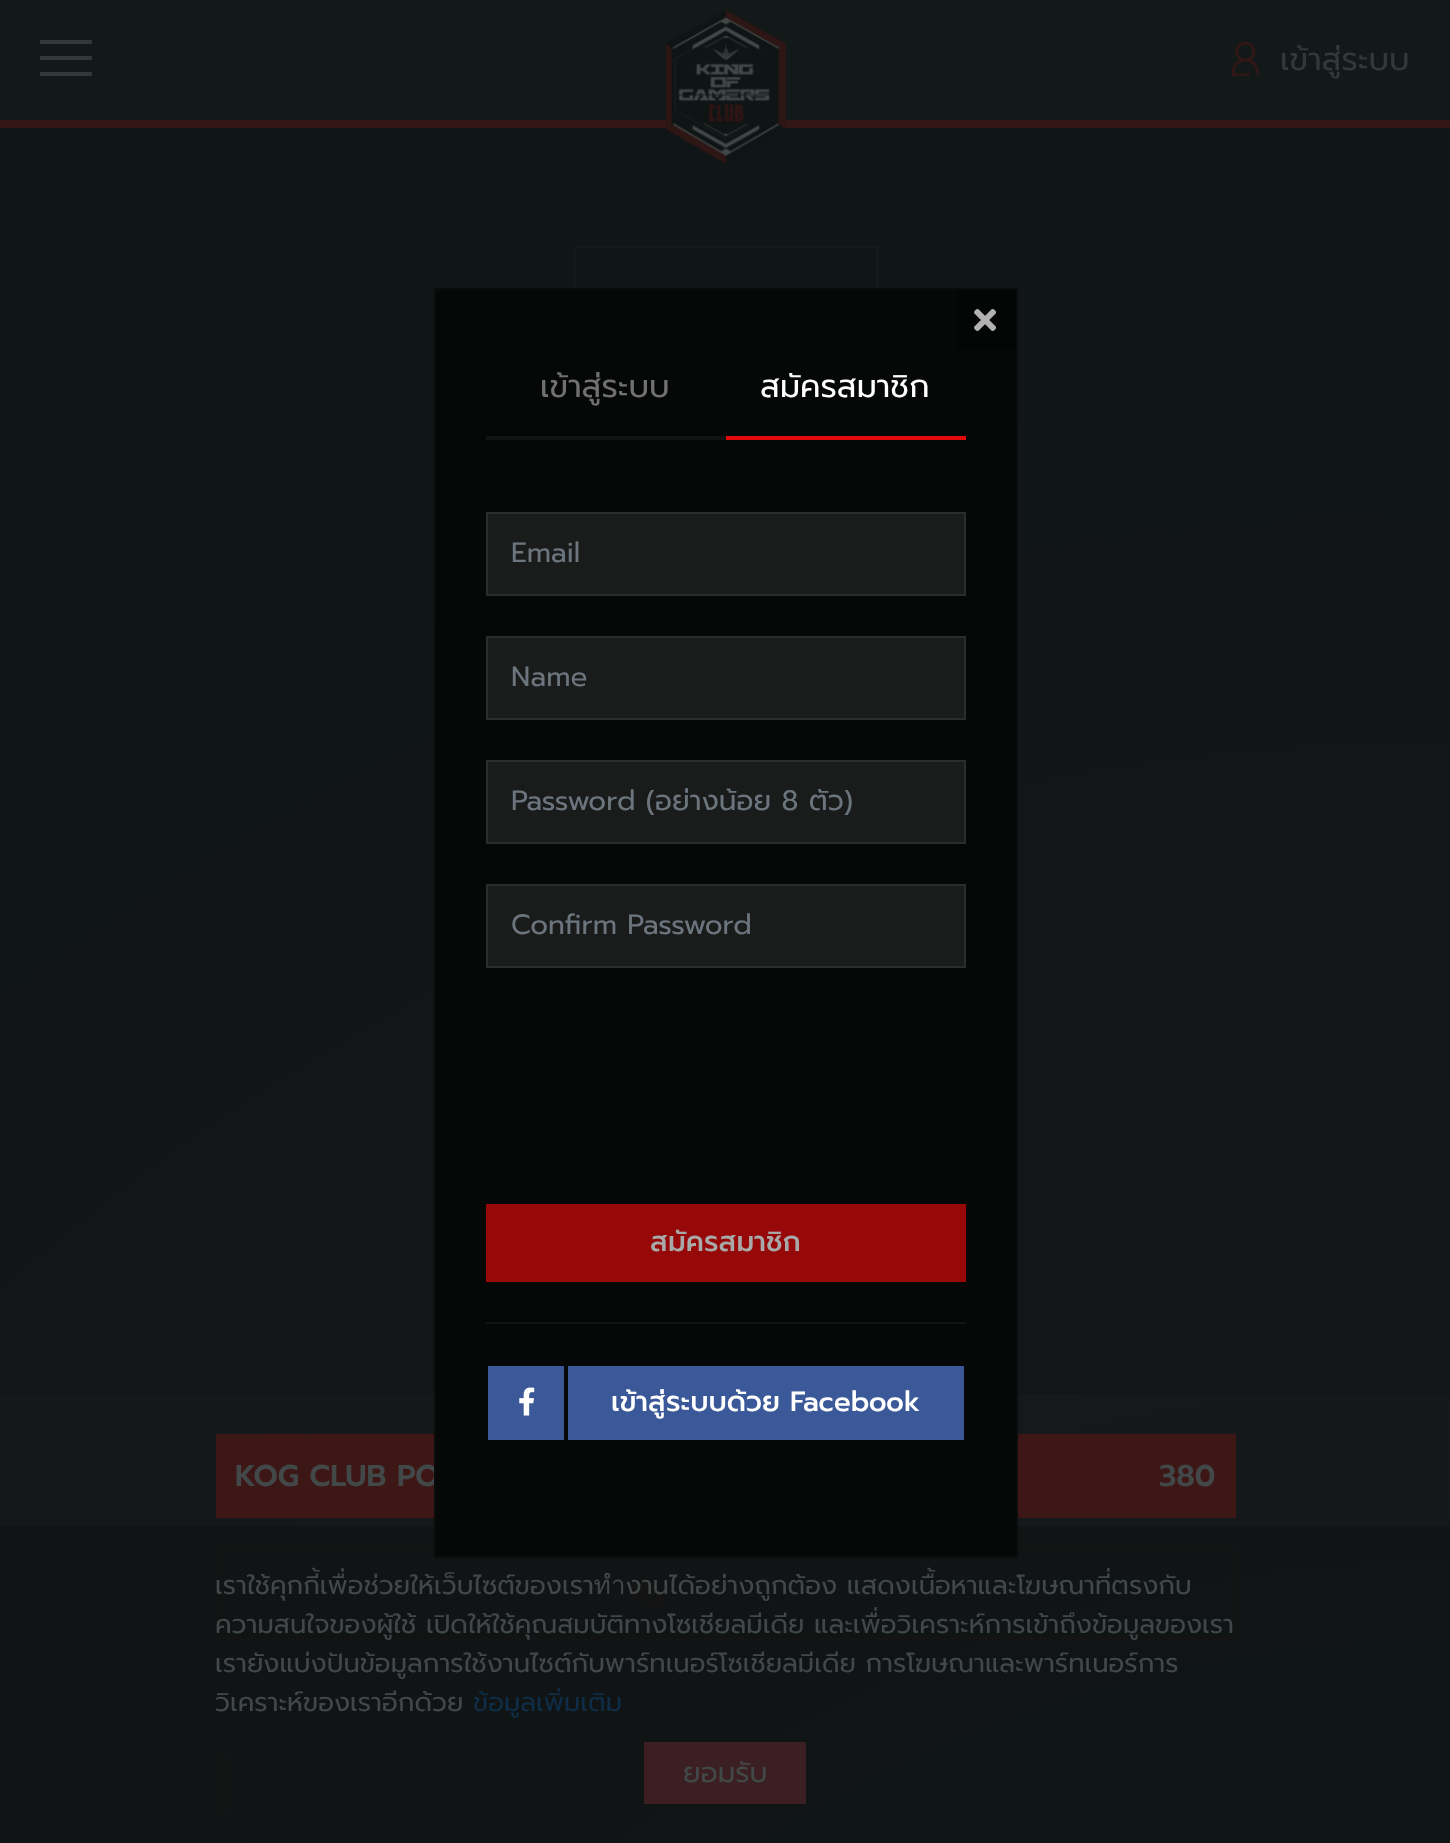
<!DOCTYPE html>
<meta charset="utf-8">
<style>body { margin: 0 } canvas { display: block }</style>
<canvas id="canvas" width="1450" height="1843"></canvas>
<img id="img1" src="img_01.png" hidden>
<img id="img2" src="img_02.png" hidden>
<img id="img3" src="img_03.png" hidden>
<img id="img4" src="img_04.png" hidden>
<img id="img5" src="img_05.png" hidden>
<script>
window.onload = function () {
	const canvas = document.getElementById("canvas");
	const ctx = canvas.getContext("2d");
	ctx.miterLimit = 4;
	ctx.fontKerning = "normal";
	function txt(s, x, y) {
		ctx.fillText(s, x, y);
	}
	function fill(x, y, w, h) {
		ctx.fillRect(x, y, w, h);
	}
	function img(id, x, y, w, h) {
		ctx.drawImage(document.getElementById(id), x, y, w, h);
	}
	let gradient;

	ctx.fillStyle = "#FFFFFF";
	fill(0, 0, 1450, 1843);
	gradient = ctx.createRadialGradient(1450, 2930, 0, 1450, 2930, 3269);
	gradient.addColorStop(0, "#101A1C");
	gradient.addColorStop(0.5, "#16181B");
	gradient.addColorStop(1, "#0F161A");
	ctx.fillStyle = gradient;
	fill(0, 1394, 1450, 132);
	gradient = ctx.createRadialGradient(1450, 2930, 0, 1450, 2930, 3269);
	gradient.addColorStop(0, "#0F1515");
	gradient.addColorStop(0.5, "#101415");
	gradient.addColorStop(1, "#0F1415");
	ctx.fillStyle = gradient;
	fill(0, 1526, 1450, 317);
	gradient = ctx.createRadialGradient(1450, 2930, 0, 1450, 2930, 3269);
	gradient.addColorStop(0, "#101718");
	gradient.addColorStop(0.5, "#131618");
	gradient.addColorStop(1, "#0F1517");
	ctx.fillStyle = gradient;
	fill(0, 128, 1450, 1266);
	ctx.fillStyle = "#131919";
	fill(0, 0, 1450, 120);
	ctx.fillStyle = "#331616";
	fill(0, 120, 1450, 8);
	ctx.fillStyle = "#333838";
	fill(40, 56, 52, 4);
	fill(40, 40, 52, 4);
	fill(40, 72, 52, 4);
	img("img1", 665, 10, 121, 154);
	img("img2", 1231, 41, 28, 35);
	ctx.strokeStyle = "rgba(66, 71, 71, 0.1)";
	ctx.lineWidth = 2;
	ctx.strokeRect(575, 247, 302, 302);
	ctx.fillStyle = "#3D1616";
	fill(216, 1434, 1020, 84);
	ctx.strokeStyle = "#141414";
	ctx.strokeRect(217, 1549, 1018, 90);
	img("img3", 630, 1580, 36, 28);
	ctx.fillStyle = "#131414";
	fill(216, 1754, 10, 60);
	ctx.fillStyle = "#3B1F22";
	fill(644, 1742, 162, 62);
	ctx.font = "32px Prompt";
	ctx.fillStyle = "#333838";
	txt("เข้าสู่ระบบ", 1280, 70);
	ctx.font = "600 30px Prompt";
	ctx.fillStyle = "#424747";
	txt("KOG CLUB PO", 235, 1486);
	txt("380", 1159, 1486);
	ctx.strokeStyle = "#0A0C0C";
	ctx.strokeRect(435, 289, 582, 1268);
	ctx.fillStyle = "#060808";
	fill(436, 290, 580, 1266);
	ctx.fillStyle = "#040505";
	fill(956, 290, 60, 60);
	img("img4", 974, 309, 22, 22);
	ctx.fillStyle = "#121414";
	fill(486, 436, 240, 4);
	ctx.font = "32px Prompt";
	ctx.fillStyle = "#717171";
	txt("เข้าสู่ระบบ", 540, 397);
	ctx.fillStyle = "#E50A0A";
	fill(726, 436, 240, 4);
	ctx.fillStyle = "#FFFFFF";
	txt("สมัครสมาชิก", 760, 397);
	ctx.fillStyle = "#1A1C1C";
	ctx.beginPath();
	ctx.rect(487, 513, 478, 82);
	ctx.fill();
	ctx.strokeStyle = "#2B2D2D";
	ctx.stroke();
	ctx.font = "28px Prompt";
	ctx.fillStyle = "#6C757D";
	txt("Email", 511, 562);
	ctx.fillStyle = "#1A1C1C";
	ctx.beginPath();
	ctx.rect(487, 637, 478, 82);
	ctx.fill();
	ctx.stroke();
	ctx.fillStyle = "#6C757D";
	txt("Name", 511, 686);
	ctx.fillStyle = "#1A1C1C";
	ctx.beginPath();
	ctx.rect(487, 761, 478, 82);
	ctx.fill();
	ctx.stroke();
	ctx.fillStyle = "#6C757D";
	txt("Password (อย่างน้อย 8 ตัว)", 511, 810);
	ctx.fillStyle = "#1A1C1C";
	ctx.beginPath();
	ctx.rect(487, 885, 478, 82);
	ctx.fill();
	ctx.stroke();
	ctx.fillStyle = "#6C757D";
	txt("Confirm Password", 511, 934);
	ctx.fillStyle = "#970909";
	fill(486, 1204, 480, 78);
	ctx.font = "500 28px Prompt";
	ctx.fillStyle = "#A8A9A9";
	txt("สมัครสมาชิก", 650, 1251);
	ctx.fillStyle = "#121414";
	fill(486, 1322, 480, 2);
	ctx.fillStyle = "#3B5998";
	fill(488, 1366, 76, 74);
	img("img5", 519, 1387, 16, 29);
	fill(568, 1366, 396, 74);
	ctx.fillStyle = "#FFFFFF";
	txt("เข้าสู่ระบบด้วย Facebook", 611, 1411);
	ctx.font = "26px Prompt";
	ctx.fillStyle = "#424747";
	txt("เราใช้คุกกี้เพื่อช่วยให้เว็บไซต์ของเราทำงานได้อย่างถูกต้อง แสดงเนื้อหาและโฆษณาที่ตรงกับ", 215, 1594);
	txt("ความสนใจของผู้ใช้ เปิดให้ใช้คุณสมบัติทางโซเชียลมีเดีย และเพื่อวิเคราะห์การเข้าถึงข้อมูลของเรา", 215, 1633);
	txt("เรายังแบ่งปันข้อมูลการใช้งานไซต์กับพาร์ทเนอร์โซเชียลมีเดีย การโฆษณาและพาร์ทเนอร์การ", 215, 1672);
	txt("วิเคราะห์ของเราอีกด้วย", 215, 1711);
	ctx.fillStyle = "#0F2D47";
	txt("ข้อมูลเพิ่มเติม", 473, 1711);
	ctx.font = "28px Prompt";
	ctx.fillStyle = "#424747";
	txt("ยอมรับ", 683, 1782);
};
</script>
